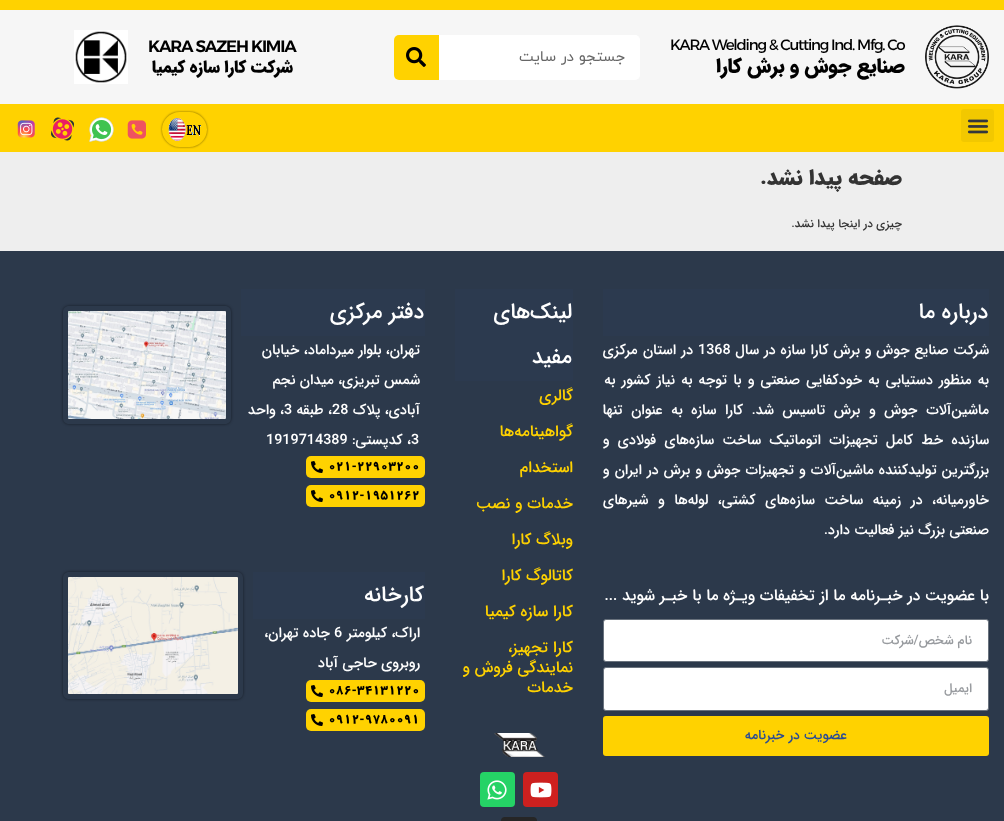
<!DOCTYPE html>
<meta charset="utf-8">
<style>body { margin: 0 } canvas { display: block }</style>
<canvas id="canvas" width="1004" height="821"></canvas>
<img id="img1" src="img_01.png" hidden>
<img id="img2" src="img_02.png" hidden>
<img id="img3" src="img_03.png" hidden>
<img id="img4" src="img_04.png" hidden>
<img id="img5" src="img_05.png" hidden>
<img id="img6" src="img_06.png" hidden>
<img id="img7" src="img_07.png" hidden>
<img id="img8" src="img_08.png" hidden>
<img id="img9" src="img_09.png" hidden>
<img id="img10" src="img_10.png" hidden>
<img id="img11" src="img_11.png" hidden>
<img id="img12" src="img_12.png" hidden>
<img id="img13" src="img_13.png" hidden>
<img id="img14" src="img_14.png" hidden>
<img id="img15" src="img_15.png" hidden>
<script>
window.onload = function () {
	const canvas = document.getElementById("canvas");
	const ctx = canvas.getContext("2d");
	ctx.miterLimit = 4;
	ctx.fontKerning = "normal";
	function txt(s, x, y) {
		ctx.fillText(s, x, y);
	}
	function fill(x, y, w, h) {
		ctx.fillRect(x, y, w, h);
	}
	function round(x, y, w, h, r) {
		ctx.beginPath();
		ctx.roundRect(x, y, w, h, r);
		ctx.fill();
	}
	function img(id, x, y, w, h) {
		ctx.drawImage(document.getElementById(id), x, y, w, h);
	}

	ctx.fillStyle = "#EEEEEE";
	fill(0, 0, 1004, 821);
	ctx.fillStyle = "#FFD200";
	fill(0, 0, 1004, 10);
	ctx.fillStyle = "#F6F6F6";
	fill(0, 10, 1004, 94);
	img("img1", 925, 25, 64, 64);
	ctx.fillStyle = "#FFFFFF";
	round(394, 35, 246, 45, 5);
	ctx.fillStyle = "#FFD200";
	ctx.beginPath();
	ctx.roundRect(394, 35, 45, 45, [5, 0, 0, 5]);
	ctx.fill();
	img("img2", 406, 47, 20, 20);
	img("img3", 74, 30, 54, 54);
	fill(0, 104, 1004, 48);
	ctx.fillStyle = "#F2C800";
	round(961, 109, 33, 33, 3);
	img("img4", 967, 119, 22, 15);
	ctx.save();
	ctx.beginPath();
	ctx.moveTo(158, 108);
	ctx.lineTo(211, 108);
	ctx.lineTo(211, 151);
	ctx.lineTo(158, 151);
	ctx.closePath();
	ctx.moveTo(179.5, 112);
	ctx.lineTo(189.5, 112);
	ctx.bezierCurveTo(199, 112, 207, 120, 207, 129.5);
	ctx.bezierCurveTo(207, 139, 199, 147, 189.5, 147);
	ctx.lineTo(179.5, 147);
	ctx.bezierCurveTo(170, 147, 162, 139, 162, 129.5);
	ctx.bezierCurveTo(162, 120, 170, 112, 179.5, 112);
	ctx.closePath();
	ctx.clip("evenodd");
	ctx.fillStyle = "rgba(0, 0, 0, 0.5)";
	ctx.filter = "blur(1px)";
	ctx.beginPath();
	ctx.roundRect(162, 112, 45, 35, 17.5);
	ctx.fill();
	ctx.filter = "none";
	ctx.restore();
	img("img5", 168, 118, 33, 23);
	img("img6", 127, 120, 19, 19);
	img("img7", 89, 117, 25, 25);
	img("img8", 51, 117, 23, 24);
	img("img9", 17, 120, 18, 18);
	ctx.fillStyle = "#2C394B";
	fill(0, 251, 1004, 570);
	ctx.fillStyle = "#2C3A4F";
	fill(603, 289, 386, 47);
	ctx.fillStyle = "#FFFFFF";
	ctx.beginPath();
	ctx.roundRect(603.5, 619.5, 385, 42, 2.5);
	ctx.fill();
	ctx.strokeStyle = "#69727D";
	ctx.stroke();
	ctx.beginPath();
	ctx.roundRect(603.5, 667.5, 385, 43, 2.5);
	ctx.fill();
	ctx.stroke();
	ctx.fillStyle = "#FFD200";
	round(603, 716, 386, 40, 3);
	ctx.fillStyle = "#2C3A4F";
	fill(455, 289, 118, 92);
	img("img10", 494, 733, 51, 24);
	ctx.fillStyle = "#CD201F";
	round(523, 772, 35, 35, 4);
	img("img11", 530, 782, 22, 16);
	ctx.fillStyle = "#25D366";
	round(480, 772, 35, 35, 4);
	img("img12", 487, 780, 20, 20);
	ctx.fillStyle = "#262626";
	round(501, 817, 36, 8, 4);
	ctx.fillStyle = "#2C3A4F";
	fill(241, 289, 184, 47);
	ctx.fillStyle = "#FFD200";
	round(306, 456, 119, 22, 5);
	img("img13", 311, 461, 12, 12);
	round(306, 485, 119, 22, 5);
	img("img13", 311, 490, 12, 12);
	ctx.save();
	ctx.beginPath();
	ctx.moveTo(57, 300);
	ctx.lineTo(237, 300);
	ctx.lineTo(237, 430);
	ctx.lineTo(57, 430);
	ctx.closePath();
	ctx.moveTo(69, 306);
	ctx.lineTo(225, 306);
	ctx.bezierCurveTo(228.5, 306, 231, 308.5, 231, 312);
	ctx.lineTo(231, 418);
	ctx.bezierCurveTo(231, 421.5, 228.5, 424, 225, 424);
	ctx.lineTo(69, 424);
	ctx.bezierCurveTo(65.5, 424, 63, 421.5, 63, 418);
	ctx.lineTo(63, 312);
	ctx.bezierCurveTo(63, 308.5, 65.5, 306, 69, 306);
	ctx.closePath();
	ctx.clip("evenodd");
	ctx.fillStyle = "rgba(0, 0, 0, 0.5)";
	ctx.filter = "blur(1.5px)";
	ctx.beginPath();
	ctx.roundRect(63, 306, 168, 118, 6);
	ctx.fill();
	ctx.filter = "none";
	ctx.restore();
	img("img14", 68, 311, 158, 108);
	ctx.fillStyle = "#2C3A4F";
	fill(253, 572, 172, 47);
	ctx.fillStyle = "#FFD200";
	round(306, 680, 119, 22, 5);
	img("img13", 311, 685, 12, 12);
	round(306, 709, 119, 22, 5);
	img("img13", 311, 714, 12, 12);
	ctx.save();
	ctx.beginPath();
	ctx.moveTo(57, 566);
	ctx.lineTo(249, 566);
	ctx.lineTo(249, 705);
	ctx.lineTo(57, 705);
	ctx.closePath();
	ctx.moveTo(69, 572);
	ctx.lineTo(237, 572);
	ctx.bezierCurveTo(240.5, 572, 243, 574.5, 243, 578);
	ctx.lineTo(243, 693);
	ctx.bezierCurveTo(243, 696.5, 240.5, 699, 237, 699);
	ctx.lineTo(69, 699);
	ctx.bezierCurveTo(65.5, 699, 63, 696.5, 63, 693);
	ctx.lineTo(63, 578);
	ctx.bezierCurveTo(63, 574.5, 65.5, 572, 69, 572);
	ctx.closePath();
	ctx.clip("evenodd");
	ctx.fillStyle = "rgba(0, 0, 0, 0.5)";
	ctx.filter = "blur(1.5px)";
	ctx.beginPath();
	ctx.roundRect(63, 572, 180, 127, 6);
	ctx.fill();
	ctx.filter = "none";
	ctx.restore();
	img("img15", 68, 577, 170, 117);
	ctx.letterSpacing = "-1.2px";
	ctx.font = "15px Alexandria";
	ctx.fillStyle = "#000000";
	txt("KARA Welding & Cutting Ind. Mfg. Co", 670, 50);
	ctx.letterSpacing = "0.25px";
	ctx.wordSpacing = "-1px";
	ctx.direction = "rtl";
	ctx.font = "900 20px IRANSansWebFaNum";
	txt("صنایع جوش و برش کارا", 905, 72);
	ctx.letterSpacing = "0px";
	ctx.wordSpacing = "0px";
	ctx.font = "15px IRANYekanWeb";
	ctx.fillStyle = "#666666";
	txt("جستجو در سایت", 625, 61);
	ctx.letterSpacing = "-1.2px";
	ctx.direction = "ltr";
	ctx.font = "600 16.5px Alexandria";
	ctx.fillStyle = "#000000";
	txt("KARA SAZEH KIMIA", 148, 52);
	ctx.letterSpacing = "0.25px";
	ctx.wordSpacing = "-1px";
	ctx.direction = "rtl";
	ctx.font = "900 17px IRANSansWebFaNum";
	txt("شرکت کارا سازه کیمیا", 293, 72);
	ctx.letterSpacing = "0px";
	ctx.wordSpacing = "0px";
	ctx.font = "900 30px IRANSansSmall";
	ctx.fillStyle = "#333333";
	txt("صفحه پیدا نشد.", 902, 184);
	ctx.font = "500 16px IRANSansSmall";
	txt("چیزی در اینجا پیدا نشد.", 902, 227);
	ctx.font = "500 30px IRANSansSmall";
	ctx.fillStyle = "#FFFFFF";
	txt("درباره ما", 988, 318);
	ctx.wordSpacing = "0.5px";
	ctx.font = "500 20px IRANSansSmall";
	txt("شرکت صنایع جوش و برش کارا سازه در سال", 989, 354);
	ctx.wordSpacing = "0px";
	ctx.direction = "ltr";
	txt("1368", 698, 354);
	ctx.wordSpacing = "1px";
	ctx.direction = "rtl";
	txt("در استان مرکزی", 693, 354);
	ctx.wordSpacing = "1.75px";
	txt("به منظور دستیابی به خودکفایی صنعتی و با توجه به نیاز کشور به", 989, 384);
	ctx.wordSpacing = "4.25px";
	txt("ماشین‌آلات جوش و برش تاسیس شد. کارا سازه به عنوان تنها", 989, 414);
	ctx.wordSpacing = "4px";
	txt("سازنده خط کامل تجهیزات اتوماتیک ساخت سازه‌های فولادی و", 989, 444);
	ctx.wordSpacing = "0.75px";
	txt("بزرگترین تولیدکننده ماشین‌آلات و تجهیزات جوش و برش در ایران و", 989, 474);
	ctx.wordSpacing = "5.25px";
	txt("خاورمیانه، در زمینه ساخت سازه‌های کشتی، لوله‌ها و شیرهای", 989, 504);
	ctx.wordSpacing = "0px";
	txt("صنعتی بزرگ نیز فعالیت دارد.", 989, 534);
	ctx.font = "500 22px IRANSansSmall";
	txt("با عضویت در خبـرنامه ما از تخفیفات ویـژه ما با خبـر شوید ...", 989, 600);
	ctx.font = "500 18px IRANSansSmall";
	ctx.fillStyle = "#989B9F";
	txt("نام شخص/شرکت", 972, 644);
	txt("ایمیل", 972, 692);
	ctx.font = "500 19px IRANSansSmall";
	ctx.fillStyle = "#2A4C94";
	txt("عضویت در خبرنامه", 847, 739);
	ctx.font = "500 30px IRANSansSmall";
	ctx.fillStyle = "#FFFFFF";
	txt("لینک‌های", 572, 318);
	txt("مفید", 572, 363);
	ctx.font = "500 22px IRANSansSmall";
	ctx.fillStyle = "#FFD200";
	txt("گالری", 573, 400);
	txt("گواهینامه‌ها", 573, 436);
	txt("استخدام", 573, 472);
	txt("خدمات و نصب", 573, 508);
	txt("وبلاگ کارا", 573, 544);
	txt("کاتالوگ کارا", 573, 580);
	txt("کارا سازه کیمیا", 573, 616);
	txt("کارا تجهیز،", 573, 652);
	txt("نمایندگی فروش و", 573, 672);
	txt("خدمات", 573, 692);
	ctx.font = "500 30px IRANSansSmall";
	ctx.fillStyle = "#FFFFFF";
	txt("دفتر مرکزی", 424, 318);
	ctx.font = "500 20px IRANSansSmall";
	txt("تهران، بلوار میرداماد، خیابان", 420, 354);
	txt("شمس تبریزی، میدان نجم", 420, 384);
	txt("آبادی، پلاک", 420, 414);
	ctx.direction = "ltr";
	txt("28", 332, 414);
	ctx.direction = "rtl";
	txt("، طبقه", 332, 414);
	ctx.direction = "ltr";
	txt("3", 284, 414);
	ctx.direction = "rtl";
	txt("، واحد", 284, 414);
	ctx.direction = "ltr";
	txt("3", 411, 444);
	ctx.direction = "rtl";
	txt("، کدپستی:", 411, 444);
	ctx.direction = "ltr";
	txt("1919714389", 266, 444);
	ctx.font = "900 12px IRANSansWebFaNum";
	ctx.fillStyle = "#000000";
	txt("021-22903200", 328, 470);
	txt("0912-1951262", 328, 499);
	ctx.direction = "rtl";
	ctx.font = "500 30px IRANSansSmall";
	ctx.fillStyle = "#FFFFFF";
	txt("کارخانه", 424, 601);
	ctx.font = "500 20px IRANSansSmall";
	txt("اراک، کیلومتر", 420, 637);
	ctx.direction = "ltr";
	txt("6", 334, 637);
	ctx.direction = "rtl";
	txt("جاده تهران،", 330, 637);
	txt("روبروی حاجی آباد", 420, 667);
	ctx.direction = "ltr";
	ctx.font = "900 12px IRANSansWebFaNum";
	ctx.fillStyle = "#000000";
	txt("086-34131220", 328, 694);
	txt("0912-9780091", 328, 723);
};
</script>
